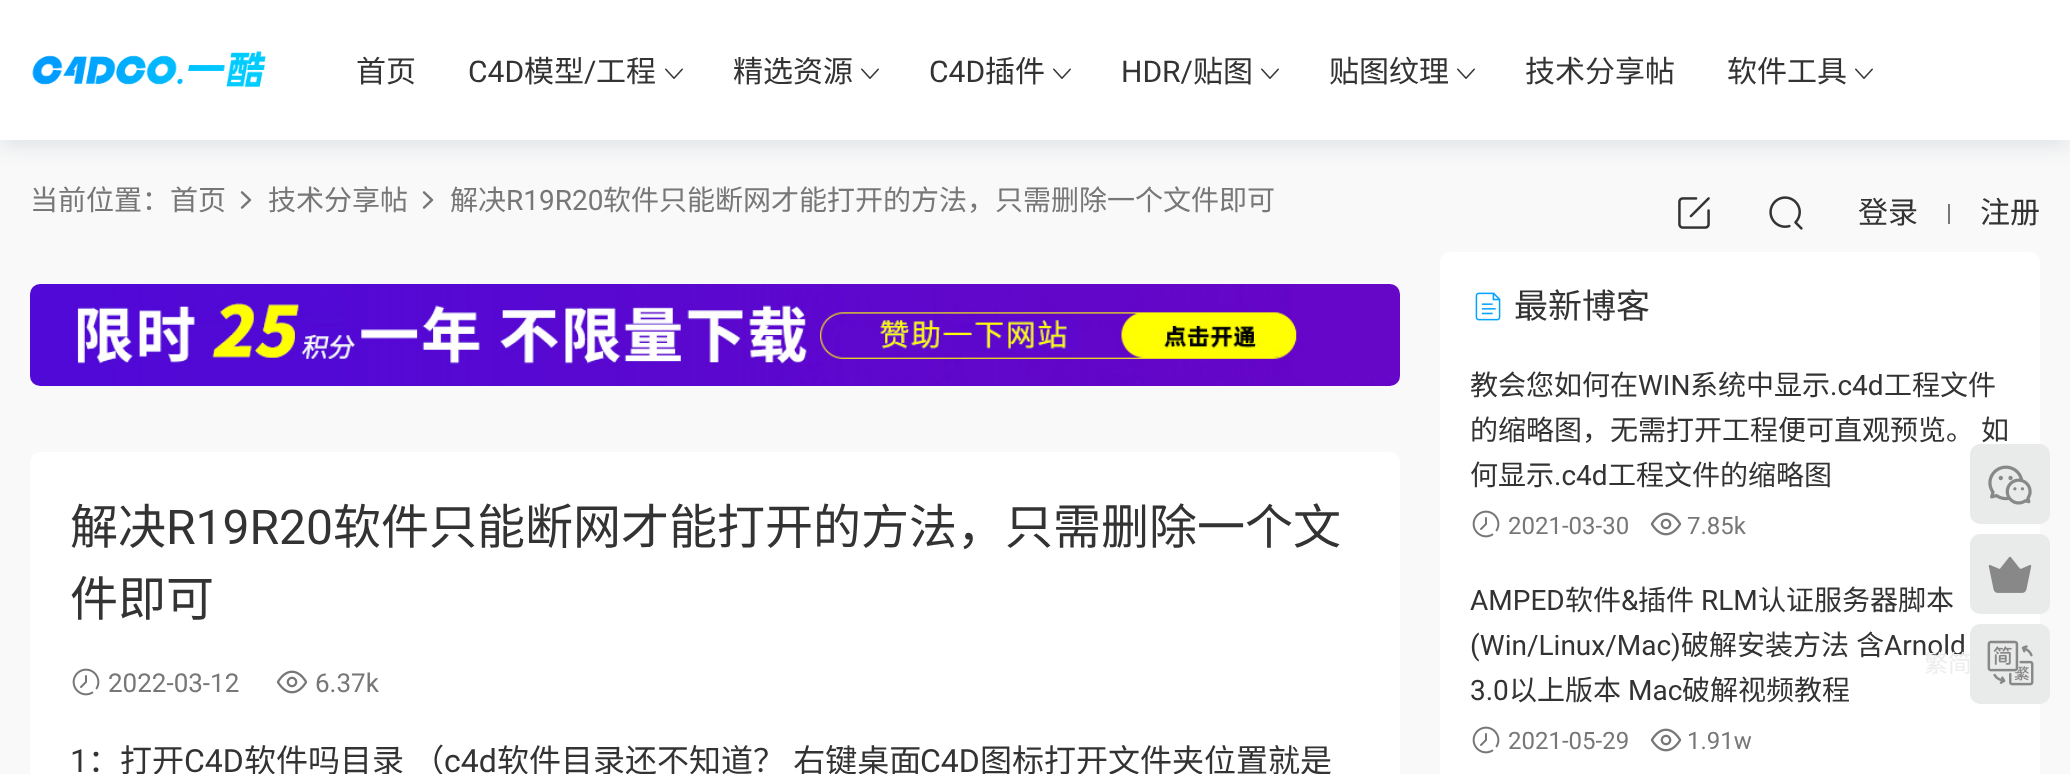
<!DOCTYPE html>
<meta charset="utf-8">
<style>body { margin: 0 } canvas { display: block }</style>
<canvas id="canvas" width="2070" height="774"></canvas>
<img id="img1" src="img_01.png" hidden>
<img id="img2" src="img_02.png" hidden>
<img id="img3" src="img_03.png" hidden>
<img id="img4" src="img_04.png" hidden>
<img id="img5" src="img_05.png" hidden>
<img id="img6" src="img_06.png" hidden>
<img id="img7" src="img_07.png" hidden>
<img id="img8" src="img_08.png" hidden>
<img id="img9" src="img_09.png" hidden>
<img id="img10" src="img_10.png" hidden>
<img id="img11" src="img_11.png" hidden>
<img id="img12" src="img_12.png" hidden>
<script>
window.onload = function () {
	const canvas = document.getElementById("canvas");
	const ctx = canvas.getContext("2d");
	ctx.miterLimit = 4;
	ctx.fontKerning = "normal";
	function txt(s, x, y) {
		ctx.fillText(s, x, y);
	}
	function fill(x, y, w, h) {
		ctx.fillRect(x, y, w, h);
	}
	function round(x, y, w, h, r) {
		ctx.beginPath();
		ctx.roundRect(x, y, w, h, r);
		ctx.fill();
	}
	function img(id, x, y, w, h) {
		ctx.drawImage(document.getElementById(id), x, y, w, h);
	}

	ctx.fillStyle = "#F9F9F9";
	fill(0, 0, 2070, 774);
	ctx.fillStyle = "rgba(17, 58, 93, 0.1)";
	ctx.filter = "blur(10px)";
	ctx.beginPath();
	ctx.rect(0, 8, 2070, 140);
	ctx.fill();
	ctx.filter = "none";
	ctx.fillStyle = "#FFFFFF";
	fill(0, 0, 2070, 140);
	img("img1", 32, 51, 234, 36);
	img("img2", 665, 68, 18, 11);
	img("img2", 861, 68, 18, 11);
	img("img2", 1053, 68, 18, 11);
	img("img2", 1261, 68, 18, 11);
	img("img2", 1457, 68, 18, 11);
	img("img2", 1855, 68, 18, 11);
	img("img3", 1678, 197, 32, 32);
	img("img4", 1769, 196, 34, 34);
	ctx.fillStyle = "#777777";
	fill(1948, 204, 2, 20);
	img("img5", 240, 191, 12, 18);
	img("img5", 422, 191, 12, 18);
	img("img6", 30, 284, 1370, 102);
	ctx.fillStyle = "#FFFFFF";
	round(30, 452, 1370, 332, 10);
	img("img7", 72, 668, 28, 28);
	img("img8", 276, 670, 32, 24);
	round(1440, 252, 600, 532, 10);
	img("img9", 1475, 292, 26, 29);
	img("img7", 1472, 510, 28, 28);
	img("img8", 1650, 512, 32, 24);
	img("img7", 1472, 726, 28, 28);
	img("img8", 1650, 728, 32, 24);
	ctx.fillStyle = "#E9EAEA";
	round(1970, 444, 80, 80, 10);
	img("img10", 1988, 465, 44, 40);
	round(1970, 534, 80, 80, 10);
	img("img11", 1988, 556, 44, 37);
	round(1970, 624, 80, 80, 10);
	img("img12", 1987, 640, 47, 46);
	ctx.font = "30px Noto Sans CJK SC";
	ctx.fillStyle = "#333333";
	txt("首页", 356, 82);
	ctx.font = "30px Roboto";
	txt("C4D", 468, 82);
	ctx.font = "30px Noto Sans CJK SC";
	txt("模型", 524, 82);
	ctx.font = "30px Roboto";
	txt("/", 584, 82);
	ctx.font = "30px Noto Sans CJK SC";
	txt("工程", 596, 82);
	txt("精选资源", 733, 82);
	ctx.font = "30px Roboto";
	txt("C4D", 929, 82);
	ctx.font = "30px Noto Sans CJK SC";
	txt("插件", 985, 82);
	ctx.font = "30px Roboto";
	txt("HDR/", 1121, 82);
	ctx.font = "30px Noto Sans CJK SC";
	txt("贴图", 1193, 82);
	txt("贴图纹理", 1329, 82);
	txt("技术分享帖", 1525, 82);
	txt("软件工具", 1727, 82);
	txt("登录", 1858, 223);
	txt("注册", 1980, 223);
	ctx.font = "28px Noto Sans CJK SC";
	ctx.fillStyle = "#777777";
	txt("当前位置：首页", 30, 210);
	txt("技术分享帖", 268, 210);
	txt("解决", 450, 210);
	ctx.font = "28px Roboto";
	txt("R19R20", 506, 210);
	ctx.font = "28px Noto Sans CJK SC";
	txt("软件只能断网才能打开的方法，只需删除一个文件即可", 603, 210);
	ctx.font = "48px Noto Sans CJK SC";
	ctx.fillStyle = "#333333";
	txt("解决", 70, 544);
	ctx.font = "48px Roboto";
	txt("R19R20", 166, 544);
	ctx.font = "48px Noto Sans CJK SC";
	txt("软件只能断网才能打开的方法，只需删除一个文", 333, 544);
	txt("件即可", 70, 616);
	ctx.font = "26px Roboto";
	ctx.fillStyle = "#777777";
	txt("2022-03-12", 108, 692);
	txt("6.37k", 315, 692);
	ctx.font = "32px Roboto";
	ctx.fillStyle = "#333333";
	txt("1", 70, 772);
	ctx.font = "32px Noto Sans CJK SC";
	txt("：打开", 88, 772);
	ctx.font = "32px Roboto";
	txt("C4D", 184, 772);
	ctx.wordSpacing = "1px";
	ctx.font = "32px Noto Sans CJK SC";
	txt("软件吗目录 （", 244, 772);
	ctx.wordSpacing = "0px";
	ctx.font = "32px Roboto";
	txt("c4d", 444, 772);
	ctx.wordSpacing = "1px";
	ctx.font = "32px Noto Sans CJK SC";
	txt("软件目录还不知道？ 右键桌面", 497, 772);
	ctx.wordSpacing = "0px";
	ctx.font = "32px Roboto";
	txt("C4D", 920, 772);
	ctx.font = "32px Noto Sans CJK SC";
	txt("图标打开文件夹位置就是", 980, 772);
	ctx.font = "34px Noto Sans CJK SC";
	txt("最新博客", 1514, 318);
	ctx.font = "28px Noto Sans CJK SC";
	txt("教会您如何在", 1470, 395);
	ctx.font = "28px Roboto";
	txt("WIN", 1638, 395);
	ctx.font = "28px Noto Sans CJK SC";
	txt("系统中显示", 1690, 395);
	ctx.font = "28px Roboto";
	txt(".c4d", 1830, 395);
	ctx.font = "28px Noto Sans CJK SC";
	txt("工程文件", 1884, 395);
	txt("的缩略图，无需打开工程便可直观预览。", 1470, 440);
	txt("如", 1981, 440);
	txt("何显示", 1470, 485);
	ctx.font = "28px Roboto";
	txt(".c4d", 1554, 485);
	ctx.font = "28px Noto Sans CJK SC";
	txt("工程文件的缩略图", 1608, 485);
	ctx.font = "24px Roboto";
	ctx.fillStyle = "#777777";
	txt("2021-03-30", 1508, 534);
	txt("7.85k", 1687, 534);
	ctx.font = "28px Roboto";
	ctx.fillStyle = "#333333";
	txt("AMPED", 1470, 610);
	ctx.font = "28px Noto Sans CJK SC";
	txt("软件", 1565, 610);
	ctx.font = "28px Roboto";
	txt("&", 1621, 610);
	ctx.font = "28px Noto Sans CJK SC";
	txt("插件", 1638, 610);
	ctx.font = "28px Roboto";
	txt("RLM", 1701, 610);
	ctx.font = "28px Noto Sans CJK SC";
	txt("认证服务器脚本", 1758, 610);
	ctx.font = "28px Roboto";
	txt("(Win/Linux/Mac)", 1470, 655);
	ctx.wordSpacing = "1px";
	ctx.font = "28px Noto Sans CJK SC";
	txt("破解安装方法 含", 1681, 655);
	ctx.wordSpacing = "0px";
	ctx.font = "28px Roboto";
	txt("Arnold", 1884, 655);
	txt("3.0", 1470, 700);
	ctx.font = "28px Noto Sans CJK SC";
	txt("以上版本", 1509, 700);
	ctx.font = "28px Roboto";
	txt("Mac", 1628, 700);
	ctx.font = "28px Noto Sans CJK SC";
	txt("破解视频教程", 1682, 700);
	ctx.font = "24px Roboto";
	ctx.fillStyle = "#777777";
	txt("2021-05-29", 1508, 749);
	txt("1.91w", 1687, 749);
	ctx.font = "24px Noto Sans CJK SC";
	ctx.fillStyle = "#ECEDED";
	txt("繁简", 1924, 672);
};
</script>
